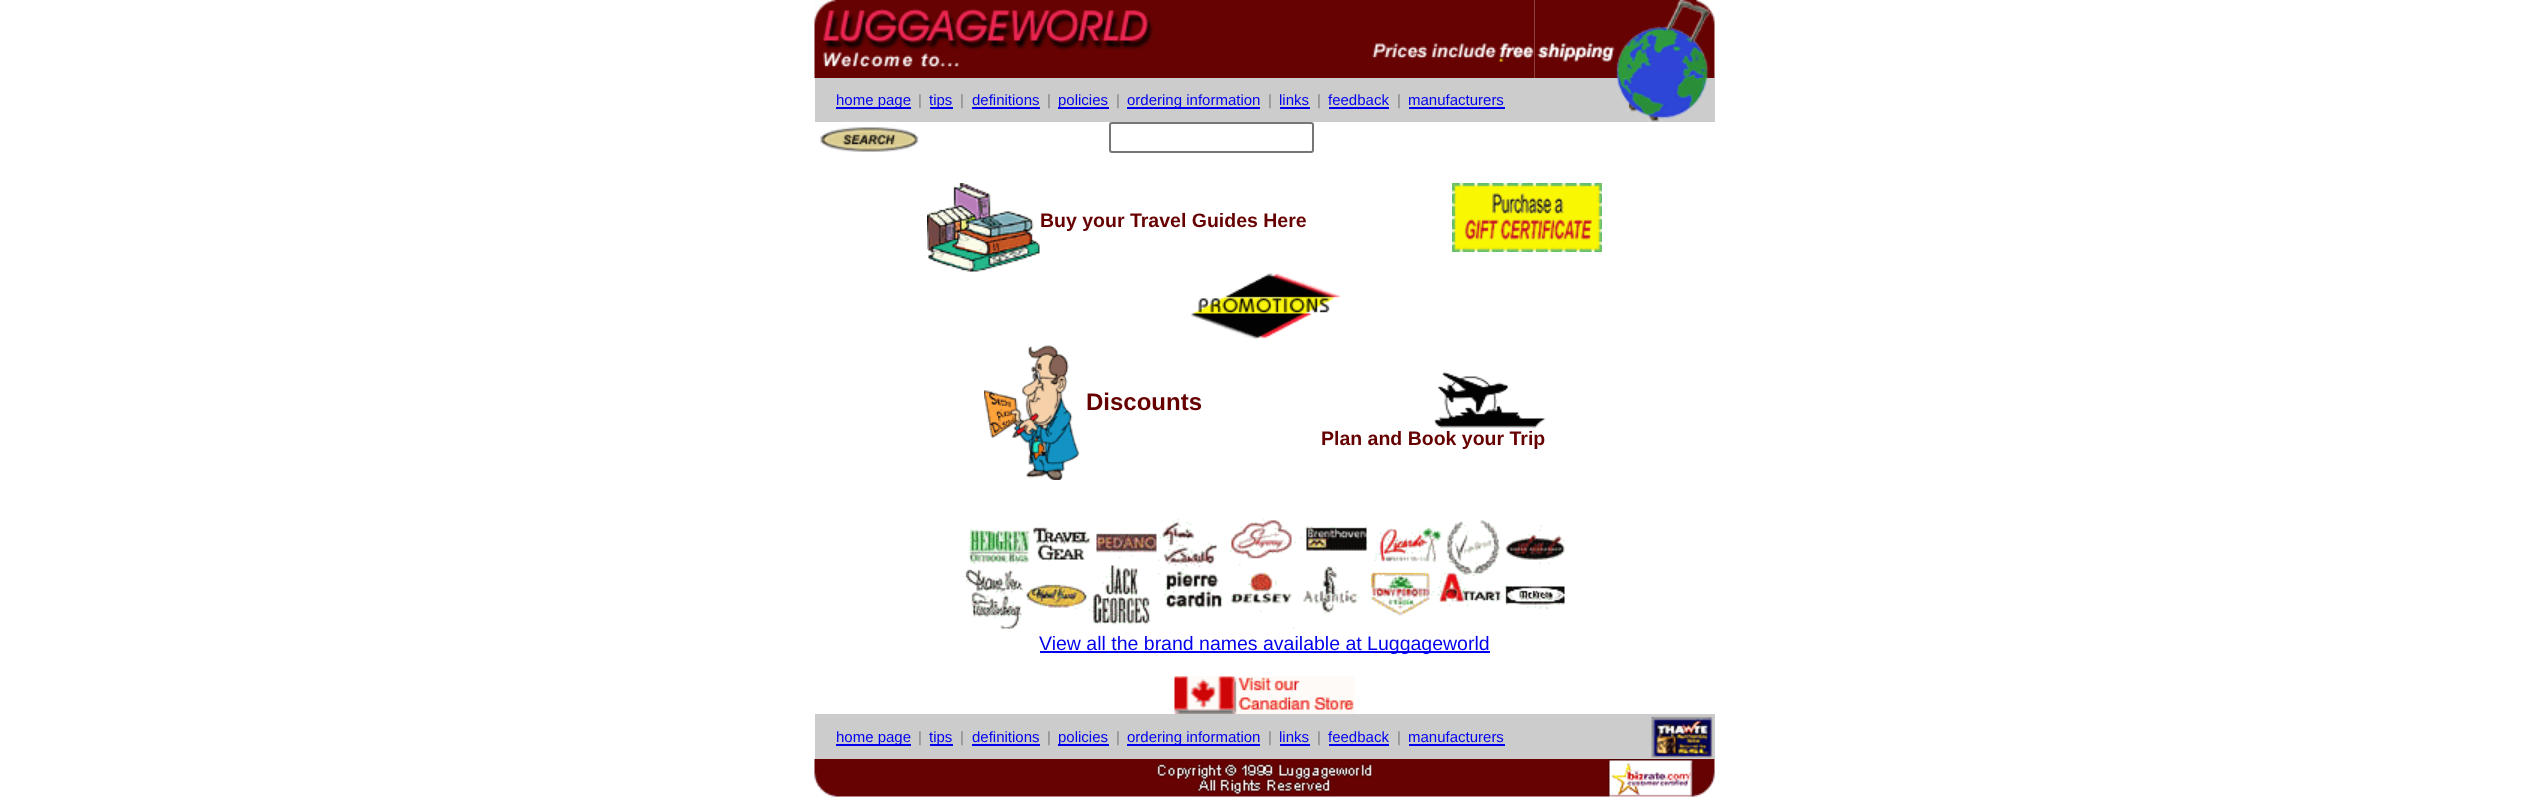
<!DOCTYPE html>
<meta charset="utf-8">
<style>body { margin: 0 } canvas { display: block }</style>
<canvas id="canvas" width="2528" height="806"></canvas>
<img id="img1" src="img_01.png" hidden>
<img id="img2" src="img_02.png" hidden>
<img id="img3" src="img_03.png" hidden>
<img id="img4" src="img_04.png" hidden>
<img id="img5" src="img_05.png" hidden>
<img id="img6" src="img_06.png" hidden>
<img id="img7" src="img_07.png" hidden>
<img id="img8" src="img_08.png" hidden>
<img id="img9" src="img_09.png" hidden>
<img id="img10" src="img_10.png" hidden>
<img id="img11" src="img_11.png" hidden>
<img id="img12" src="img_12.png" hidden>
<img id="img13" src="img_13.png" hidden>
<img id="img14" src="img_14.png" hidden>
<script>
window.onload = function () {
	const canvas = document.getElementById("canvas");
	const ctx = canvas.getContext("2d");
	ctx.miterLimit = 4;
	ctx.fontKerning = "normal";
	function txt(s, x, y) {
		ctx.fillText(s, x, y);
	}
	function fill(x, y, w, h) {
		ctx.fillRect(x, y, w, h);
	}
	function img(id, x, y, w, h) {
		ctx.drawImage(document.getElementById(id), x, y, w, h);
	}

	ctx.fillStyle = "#FFFFFF";
	fill(0, 0, 2528, 806);
	img("img1", 814, 0, 683, 78);
	img("img2", 1497, 0, 38, 78);
	img("img3", 1534, 0, 181, 78);
	ctx.fillStyle = "#CCCCCC";
	fill(815, 78, 900, 44);
	ctx.fillStyle = "#0000EE";
	fill(836, 107, 75, 2);
	fill(930, 107, 23, 2);
	fill(972, 107, 68, 2);
	fill(1058, 107, 51, 2);
	fill(1127, 107, 133, 2);
	fill(1280, 107, 30, 2);
	fill(1329, 107, 60, 2);
	fill(1409, 107, 96, 2);
	img("img4", 1616, 78, 92, 44);
	img("img5", 820, 127, 99, 25);
	ctx.beginPath();
	ctx.roundRect(1110, 123, 203, 29, 2);
	ctx.strokeStyle = "#767676";
	ctx.lineWidth = 2;
	ctx.stroke();
	img("img6", 927, 183, 113, 89);
	img("img7", 1452, 183, 150, 69);
	img("img8", 1190, 273, 151, 66);
	img("img9", 984, 345, 96, 135);
	img("img10", 1434, 372, 112, 56);
	img("img11", 965, 518, 600, 111);
	fill(1040, 651, 450, 2);
	img("img12", 1174, 676, 181, 38);
	ctx.fillStyle = "#CCCCCC";
	fill(815, 714, 900, 45);
	ctx.fillStyle = "#0000EE";
	fill(836, 744, 75, 2);
	fill(930, 744, 23, 2);
	fill(972, 744, 68, 2);
	fill(1058, 744, 51, 2);
	fill(1127, 744, 133, 2);
	fill(1280, 744, 30, 2);
	fill(1329, 744, 60, 2);
	fill(1409, 744, 96, 2);
	img("img13", 1651, 716, 63, 42);
	img("img14", 814, 759, 901, 38);
	ctx.font = "15px Liberation Sans";
	txt("home page", 836, 105);
	ctx.fillStyle = "#808080";
	txt("|", 918, 105);
	ctx.fillStyle = "#0000EE";
	txt("tips", 929, 105);
	ctx.fillStyle = "#808080";
	txt("|", 960, 105);
	ctx.fillStyle = "#0000EE";
	txt("definitions", 972, 105);
	ctx.fillStyle = "#808080";
	txt("|", 1047, 105);
	ctx.fillStyle = "#0000EE";
	txt("policies", 1058, 105);
	ctx.fillStyle = "#808080";
	txt("|", 1116, 105);
	ctx.fillStyle = "#0000EE";
	txt("ordering information", 1127, 105);
	ctx.fillStyle = "#808080";
	txt("|", 1268, 105);
	ctx.fillStyle = "#0000EE";
	txt("links", 1279, 105);
	ctx.fillStyle = "#808080";
	txt("|", 1317, 105);
	ctx.fillStyle = "#0000EE";
	txt("feedback", 1328, 105);
	ctx.fillStyle = "#808080";
	txt("|", 1397, 105);
	ctx.fillStyle = "#0000EE";
	txt("manufacturers", 1408, 105);
	ctx.font = "bold 19.5px Liberation Sans";
	ctx.fillStyle = "#660000";
	txt("Buy your Travel Guides Here", 1040, 227);
	ctx.font = "bold 24px Liberation Sans";
	txt("Discounts", 1086, 410);
	ctx.font = "bold 19.5px Liberation Sans";
	txt("Plan and Book your Trip", 1321, 445);
	ctx.font = "19.5px Liberation Sans";
	ctx.fillStyle = "#0000EE";
	txt("View all the brand names available at Luggageworld", 1039, 650);
	ctx.font = "15px Liberation Sans";
	txt("home page", 836, 742);
	ctx.fillStyle = "#808080";
	txt("|", 918, 742);
	ctx.fillStyle = "#0000EE";
	txt("tips", 929, 742);
	ctx.fillStyle = "#808080";
	txt("|", 960, 742);
	ctx.fillStyle = "#0000EE";
	txt("definitions", 972, 742);
	ctx.fillStyle = "#808080";
	txt("|", 1047, 742);
	ctx.fillStyle = "#0000EE";
	txt("policies", 1058, 742);
	ctx.fillStyle = "#808080";
	txt("|", 1116, 742);
	ctx.fillStyle = "#0000EE";
	txt("ordering information", 1127, 742);
	ctx.fillStyle = "#808080";
	txt("|", 1268, 742);
	ctx.fillStyle = "#0000EE";
	txt("links", 1279, 742);
	ctx.fillStyle = "#808080";
	txt("|", 1317, 742);
	ctx.fillStyle = "#0000EE";
	txt("feedback", 1328, 742);
	ctx.fillStyle = "#808080";
	txt("|", 1397, 742);
	ctx.fillStyle = "#0000EE";
	txt("manufacturers", 1408, 742);
};
</script>
